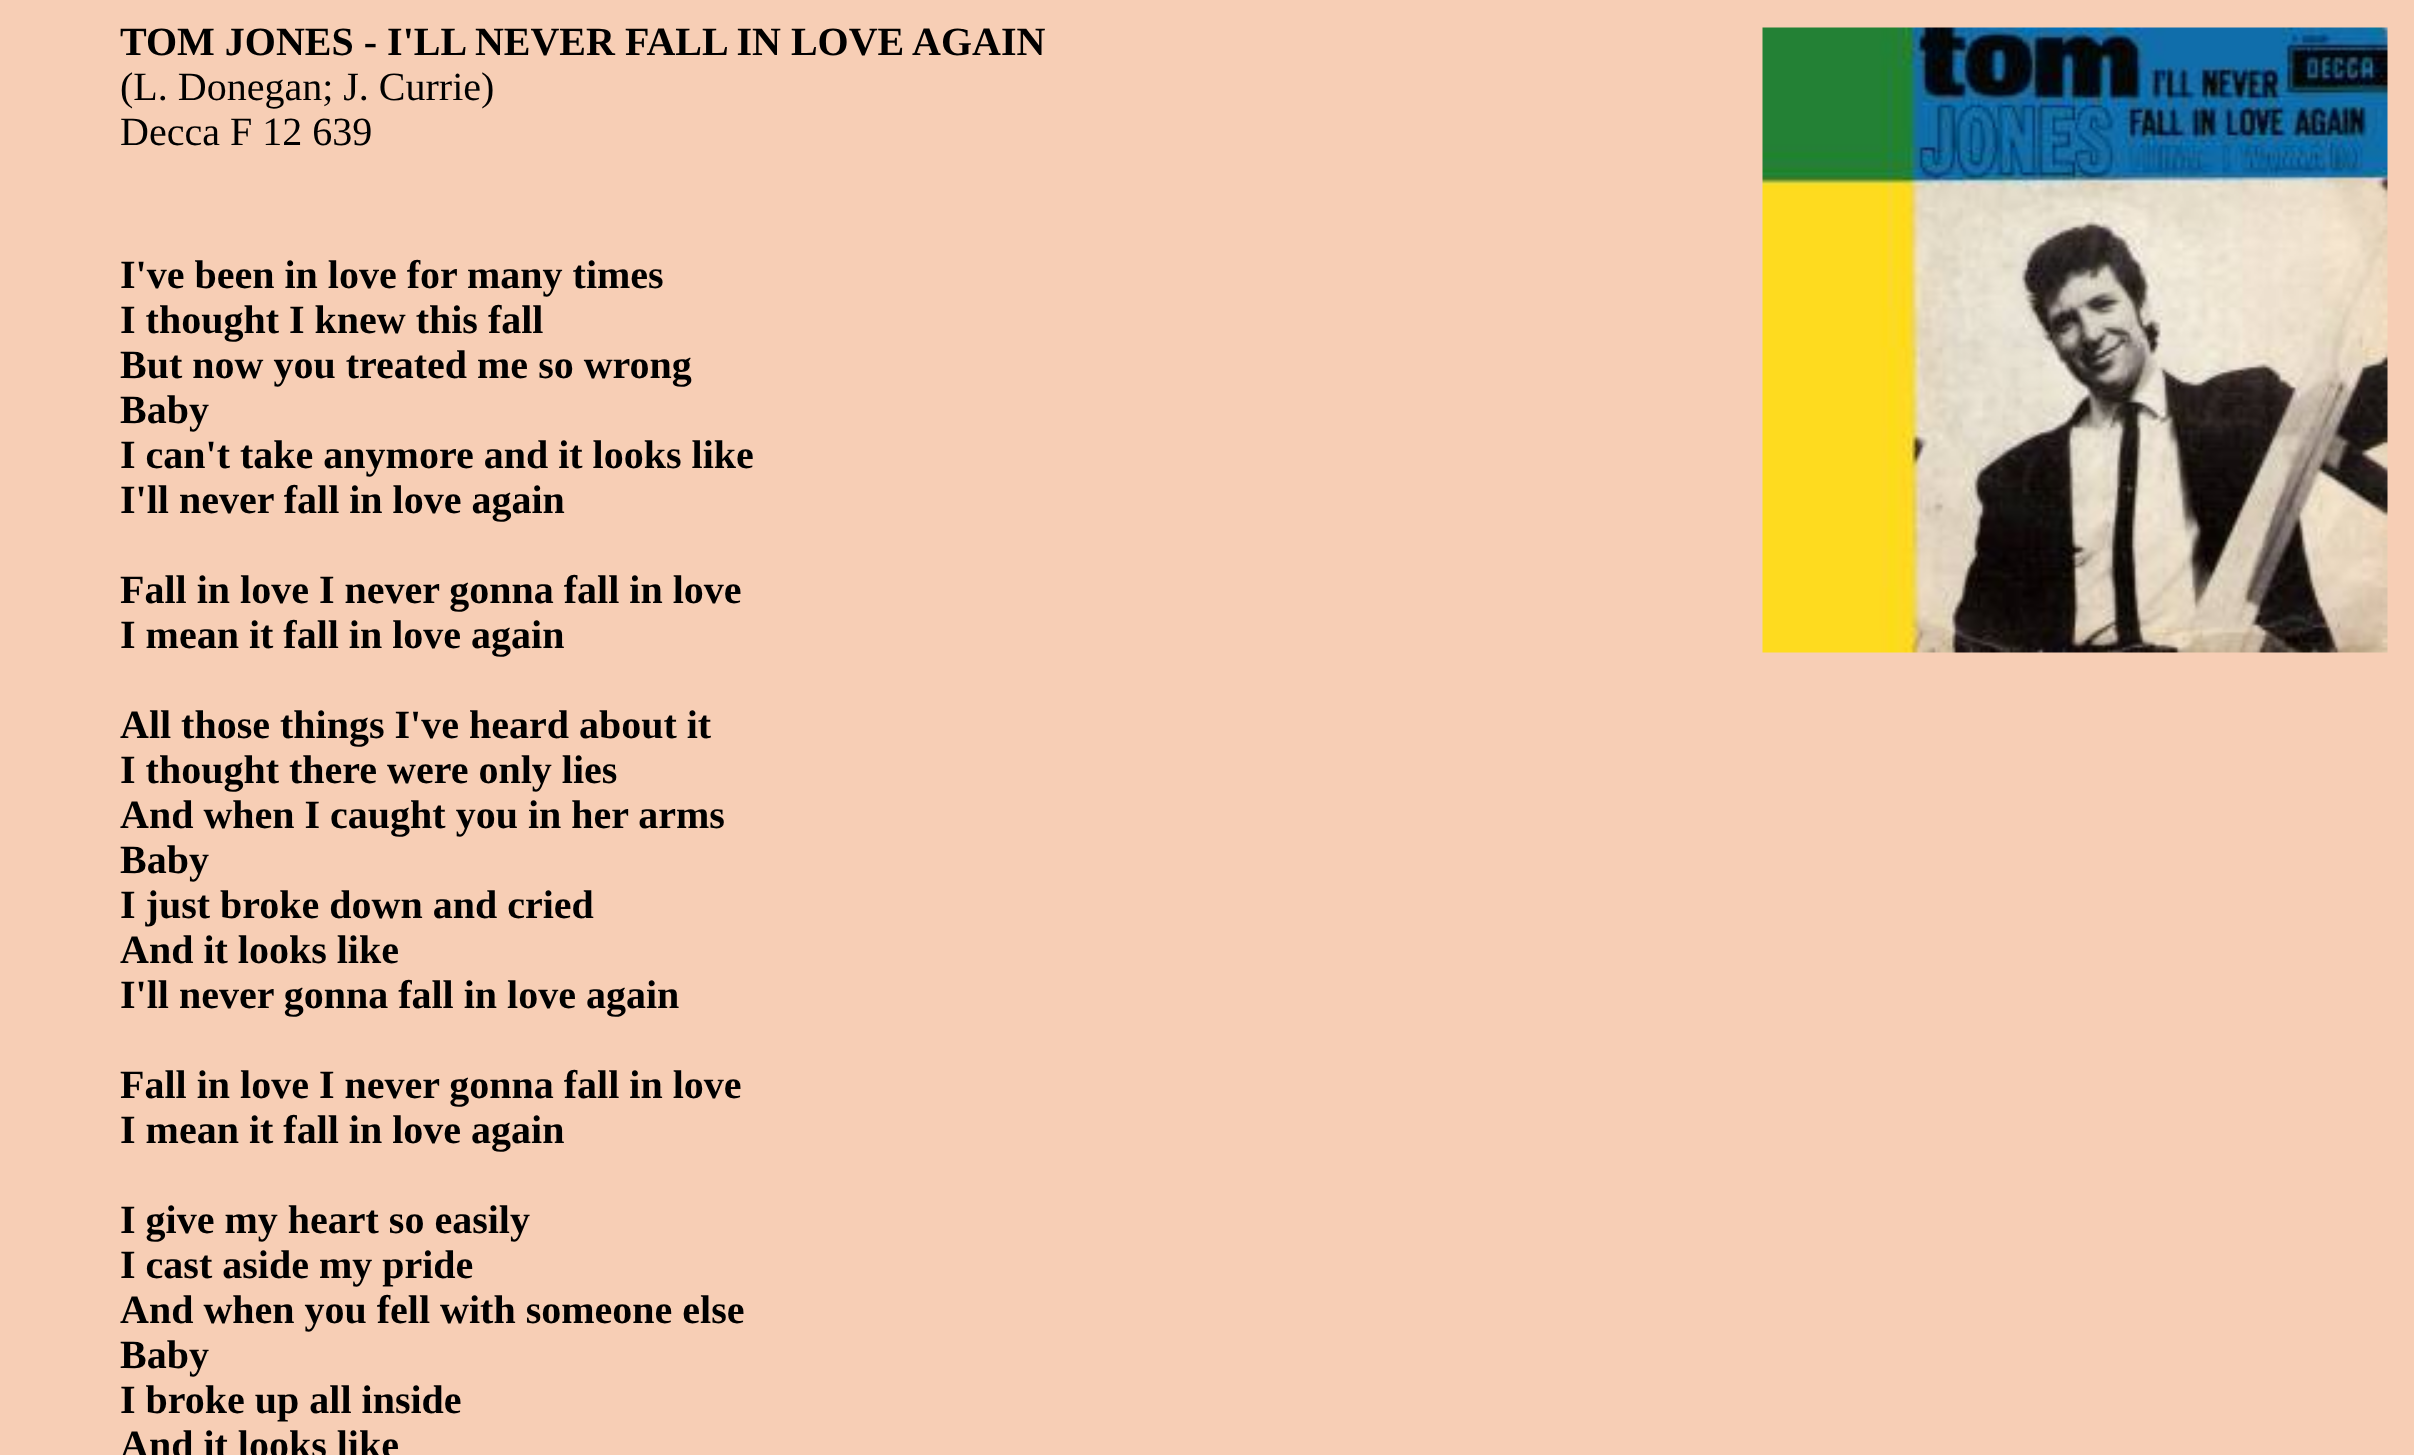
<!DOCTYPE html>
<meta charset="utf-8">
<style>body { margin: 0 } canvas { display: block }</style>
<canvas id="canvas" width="2414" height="1455"></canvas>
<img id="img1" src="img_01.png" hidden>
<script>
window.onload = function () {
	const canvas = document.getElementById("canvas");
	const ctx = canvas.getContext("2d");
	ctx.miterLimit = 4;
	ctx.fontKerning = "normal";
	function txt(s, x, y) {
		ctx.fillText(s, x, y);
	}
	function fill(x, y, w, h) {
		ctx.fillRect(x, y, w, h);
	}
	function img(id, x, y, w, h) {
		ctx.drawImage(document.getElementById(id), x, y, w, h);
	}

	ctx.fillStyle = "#F7CEB5";
	fill(0, 0, 2414, 1455);
	img("img1", 1762, 27, 626, 626);
	ctx.font = "bold 40px Liberation Serif";
	ctx.fillStyle = "#000000";
	txt("TOM JONES - I'LL NEVER FALL IN LOVE AGAIN", 120, 55);
	ctx.font = "40px Liberation Serif";
	txt("(L. Donegan; J. Currie)", 120, 100);
	txt("Decca F 12 639", 120, 145);
	ctx.font = "bold 40px Liberation Serif";
	txt("I've been in love for many times", 120, 288);
	txt("I thought I knew this fall", 120, 333);
	txt("But now you treated me so wrong", 120, 378);
	txt("Baby", 120, 423);
	txt("I can't take anymore and it looks like", 120, 468);
	txt("I'll never fall in love again", 120, 513);
	txt("Fall in love I never gonna fall in love", 120, 603);
	txt("I mean it fall in love again", 120, 648);
	txt("All those things I've heard about it", 120, 738);
	txt("I thought there were only lies", 120, 783);
	txt("And when I caught you in her arms", 120, 828);
	txt("Baby", 120, 873);
	txt("I just broke down and cried", 120, 918);
	txt("And it looks like", 120, 963);
	txt("I'll never gonna fall in love again", 120, 1008);
	txt("Fall in love I never gonna fall in love", 120, 1098);
	txt("I mean it fall in love again", 120, 1143);
	txt("I give my heart so easily", 120, 1233);
	txt("I cast aside my pride", 120, 1278);
	txt("And when you fell with someone else", 120, 1323);
	txt("Baby", 120, 1368);
	txt("I broke up all inside", 120, 1413);
	txt("And it looks like", 120, 1458);
};
</script>
